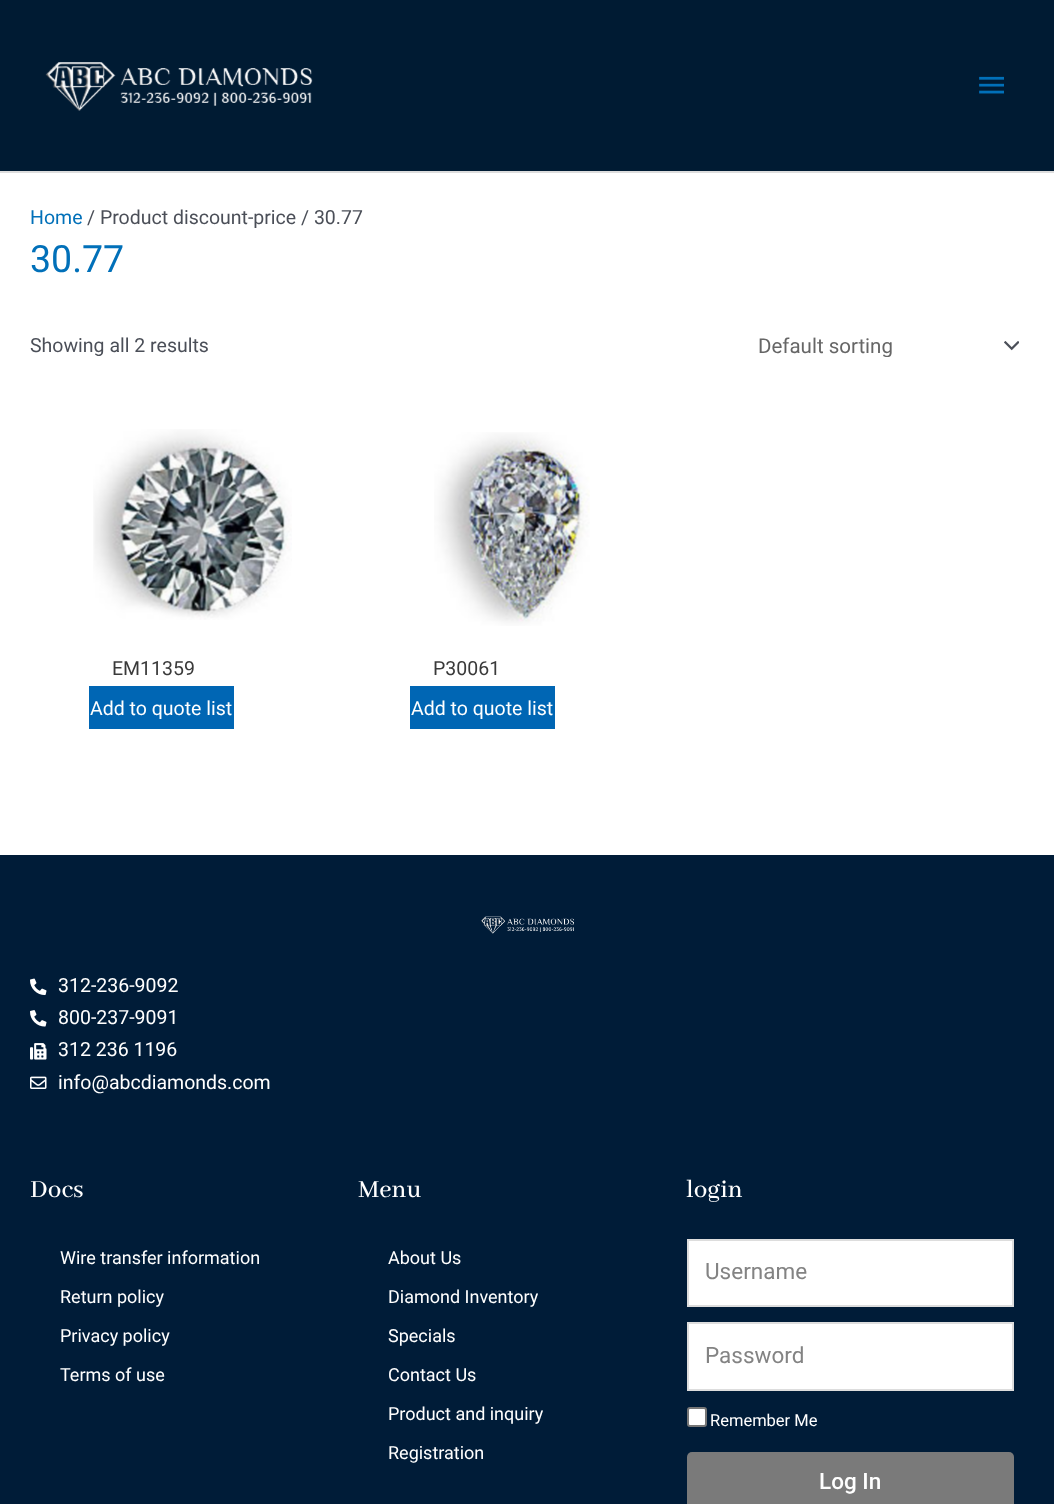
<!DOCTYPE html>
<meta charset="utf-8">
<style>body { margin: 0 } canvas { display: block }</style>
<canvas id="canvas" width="1054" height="1504"></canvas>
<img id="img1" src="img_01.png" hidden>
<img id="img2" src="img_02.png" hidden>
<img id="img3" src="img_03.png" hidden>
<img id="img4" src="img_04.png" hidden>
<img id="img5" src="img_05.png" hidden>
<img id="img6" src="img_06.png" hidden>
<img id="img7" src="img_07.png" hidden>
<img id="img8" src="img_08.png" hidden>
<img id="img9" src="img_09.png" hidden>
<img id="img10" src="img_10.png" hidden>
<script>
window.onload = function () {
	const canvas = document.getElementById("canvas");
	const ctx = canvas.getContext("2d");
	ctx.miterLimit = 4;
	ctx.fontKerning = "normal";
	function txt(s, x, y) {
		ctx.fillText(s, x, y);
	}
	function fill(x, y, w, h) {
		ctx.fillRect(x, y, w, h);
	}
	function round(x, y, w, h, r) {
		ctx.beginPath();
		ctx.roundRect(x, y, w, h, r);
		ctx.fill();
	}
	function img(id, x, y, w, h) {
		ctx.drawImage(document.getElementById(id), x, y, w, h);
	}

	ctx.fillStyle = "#FFFFFF";
	fill(0, 0, 1054, 1504);
	ctx.fillStyle = "#001B33";
	fill(0, 0, 1054, 171);
	ctx.fillStyle = "#DDDDDD";
	fill(0, 171, 1054, 2);
	img("img1", 45, 62, 268, 49);
	img("img2", 979, 76, 25, 18);
	img("img3", 1004, 341, 15, 10);
	img("img4", 93, 429, 199, 191);
	ctx.fillStyle = "#0066B4";
	fill(89, 686, 145, 43);
	img("img5", 434, 432, 156, 194);
	fill(410, 686, 145, 43);
	ctx.fillStyle = "#001C38";
	fill(0, 855, 1054, 649);
	img("img6", 481, 916, 93, 18);
	img("img7", 30, 978, 17, 18);
	img("img8", 30, 1010, 17, 17);
	img("img9", 30, 1043, 17, 17);
	img("img10", 30, 1076, 17, 13);
	ctx.fillStyle = "#FFFFFF";
	ctx.beginPath();
	ctx.rect(688, 1240, 325, 66);
	ctx.fill();
	ctx.strokeStyle = "#DDDDDD";
	ctx.lineWidth = 2;
	ctx.stroke();
	ctx.beginPath();
	ctx.rect(688, 1323, 325, 67);
	ctx.fill();
	ctx.stroke();
	ctx.beginPath();
	ctx.roundRect(688, 1408, 18, 18, 2);
	ctx.fill();
	ctx.strokeStyle = "#767676";
	ctx.stroke();
	ctx.fillStyle = "#7A7A7A";
	round(687, 1452, 327, 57, 5);
	ctx.font = "19.5px Roboto";
	ctx.fillStyle = "#0170B9";
	txt("Home", 30, 224);
	ctx.fillStyle = "#4B4F58";
	txt("/ Product discount-price / 30.77", 87, 224);
	ctx.font = "37.5px Roboto";
	ctx.fillStyle = "#0170B9";
	txt("30.77", 30, 272);
	ctx.font = "19.5px Roboto";
	ctx.fillStyle = "#4B4F58";
	txt("Showing all 2 results", 30, 352);
	ctx.save();
	ctx.beginPath();
	ctx.rect(759, 333, 225, 24);
	ctx.clip();
	ctx.font = "20.5px Roboto";
	ctx.fillStyle = "#666666";
	txt("Default sorting", 758, 353);
	ctx.restore();
	ctx.fillStyle = "#3A3A3A";
	txt("EM11359", 112, 675);
	ctx.fillStyle = "#FFFFFF";
	txt("Add to quote list", 90, 715);
	ctx.fillStyle = "#3A3A3A";
	txt("P30061", 433, 675);
	ctx.fillStyle = "#FFFFFF";
	txt("Add to quote list", 411, 715);
	txt("312-236-9092", 58, 992);
	txt("800-237-9091", 58, 1024);
	txt("312 236 1196", 58, 1056);
	txt("info@abcdiamonds.com", 58, 1089);
	ctx.font = "500 27px Abhaya Libre Medium";
	txt("Docs", 30, 1197);
	ctx.font = "18px Roboto";
	txt("Wire transfer information", 60, 1264);
	txt("Return policy", 60, 1303);
	txt("Privacy policy", 60, 1342);
	txt("Terms of use", 60, 1381);
	ctx.font = "500 27px Abhaya Libre Medium";
	txt("Menu", 358, 1197);
	ctx.font = "18px Roboto";
	txt("About Us", 388, 1264);
	txt("Diamond Inventory", 388, 1303);
	txt("Specials", 388, 1342);
	txt("Contact Us", 388, 1381);
	txt("Product and inquiry", 388, 1420);
	txt("Registration", 388, 1459);
	ctx.font = "500 27px Abhaya Libre Medium";
	txt("login", 686, 1197);
	ctx.font = "22.5px Roboto";
	ctx.fillStyle = "#838383";
	txt("Username", 705, 1279);
	txt("Password", 705, 1363);
	ctx.font = "16.5px Roboto";
	ctx.fillStyle = "#FFFFFF";
	txt("Remember Me", 710, 1426);
	ctx.font = "500 22.5px Roboto";
	txt("Log In", 819, 1489);
};
</script>
